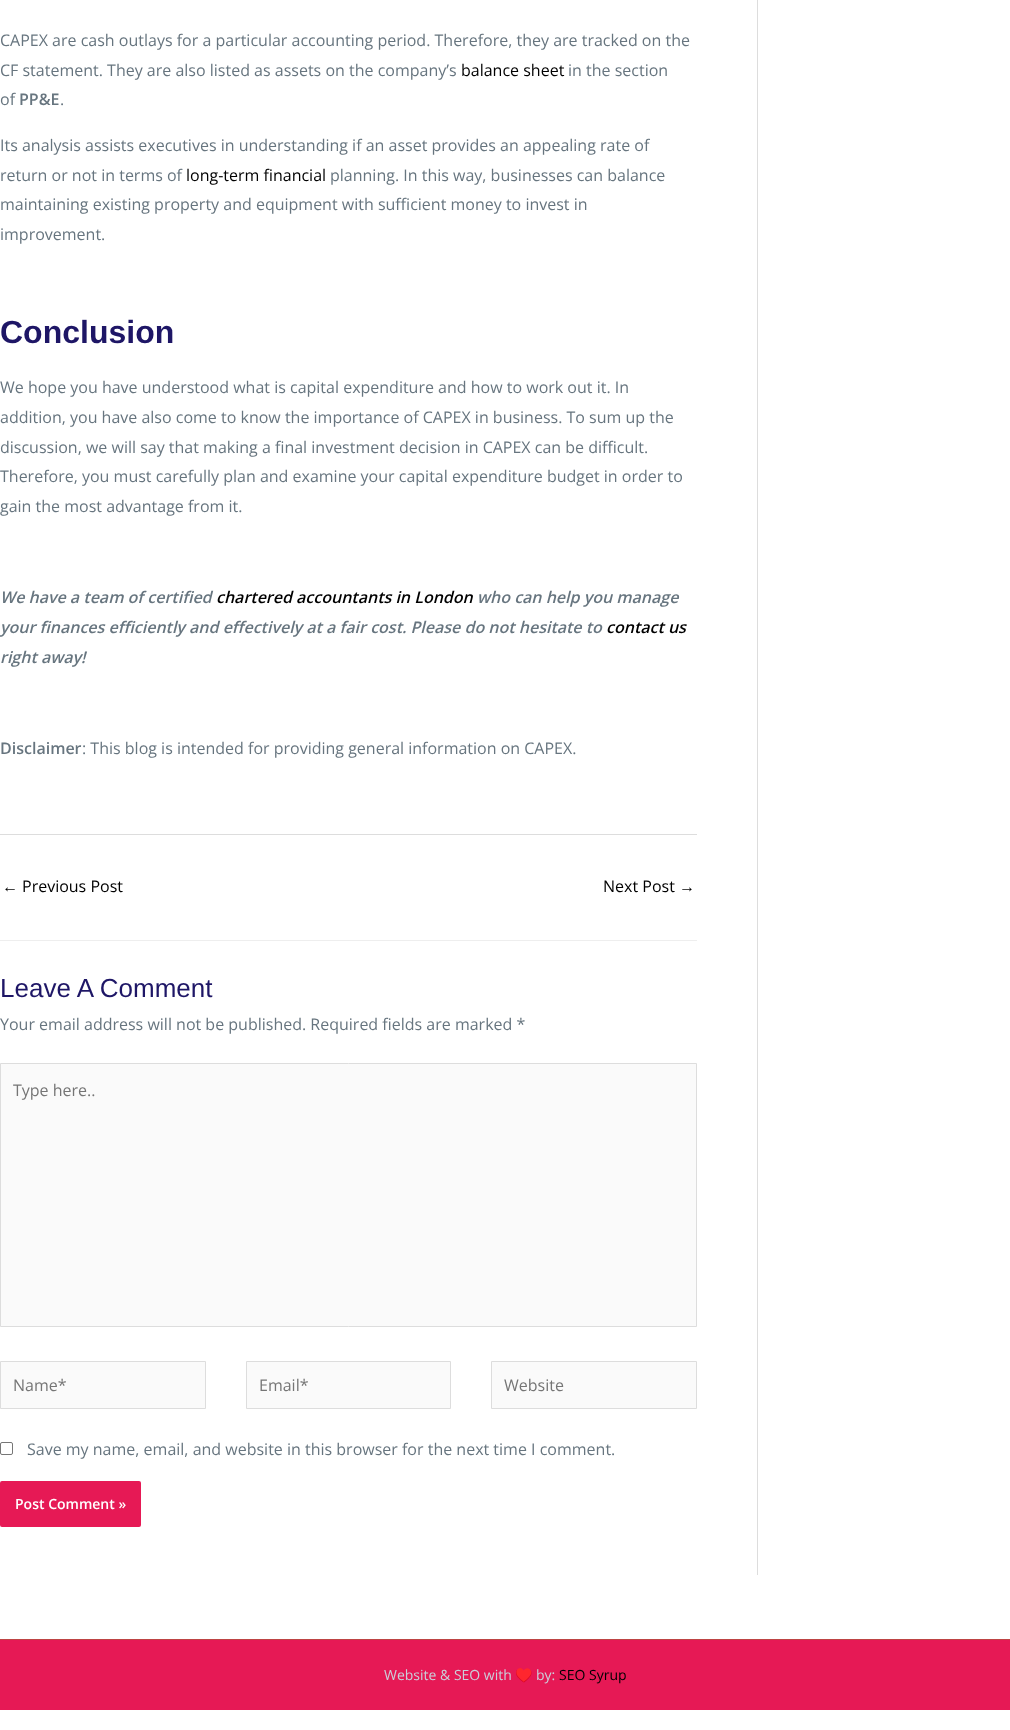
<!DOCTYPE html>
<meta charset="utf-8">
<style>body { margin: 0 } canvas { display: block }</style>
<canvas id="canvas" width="1010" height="1730"></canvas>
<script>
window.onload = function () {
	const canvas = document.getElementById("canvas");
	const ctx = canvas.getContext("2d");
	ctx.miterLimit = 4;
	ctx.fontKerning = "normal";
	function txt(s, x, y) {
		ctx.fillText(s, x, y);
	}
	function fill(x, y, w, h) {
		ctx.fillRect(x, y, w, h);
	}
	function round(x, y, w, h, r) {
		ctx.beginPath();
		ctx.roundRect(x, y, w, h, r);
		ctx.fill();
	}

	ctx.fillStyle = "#FFFFFF";
	fill(0, 0, 1010, 1730);
	ctx.fillStyle = "#DDDDDD";
	fill(757, 0, 1, 1575);
	fill(0, 834, 697, 1);
	ctx.fillStyle = "#EEEEEE";
	fill(0, 940, 697, 1);
	ctx.fillStyle = "#FAFAFA";
	ctx.beginPath();
	ctx.rect(0.5, 1063.5, 696, 263);
	ctx.fill();
	ctx.strokeStyle = "#DDDDDD";
	ctx.stroke();
	ctx.beginPath();
	ctx.rect(0.5, 1361.5, 205, 47);
	ctx.fill();
	ctx.stroke();
	ctx.beginPath();
	ctx.rect(246.5, 1361.5, 204, 47);
	ctx.fill();
	ctx.stroke();
	ctx.beginPath();
	ctx.rect(491.5, 1361.5, 205, 47);
	ctx.fill();
	ctx.stroke();
	ctx.beginPath();
	ctx.roundRect(0.5, 1442.5, 12, 12, 1.5);
	ctx.strokeStyle = "#767676";
	ctx.stroke();
	ctx.fillStyle = "#E61955";
	round(0, 1481, 141, 46, 2);
	fill(0, 1640, 1010, 70);
	ctx.fillStyle = "#BE4444";
	fill(0, 1639, 1010, 1);
	ctx.font = "16px Open Sans";
	ctx.fillStyle = "#67757F";
	txt("CAPEX are cash outlays for a particular accounting period. Therefore, they are tracked on the", 0, 46);
	txt("CF statement. They are also listed as assets on the company’s", 0, 76);
	ctx.fillStyle = "#000000";
	txt("balance sheet", 461, 76);
	ctx.fillStyle = "#67757F";
	txt("in the section", 568, 76);
	txt("of", 0, 105);
	ctx.font = "600 16px Open Sans";
	txt("PP&E", 19, 105);
	ctx.font = "16px Open Sans";
	txt(".", 60, 105);
	txt("Its analysis assists executives in understanding if an asset provides an appealing rate of", 0, 151);
	txt("return or not in terms of", 0, 181);
	ctx.fillStyle = "#000000";
	txt("long-term financial", 186, 181);
	ctx.fillStyle = "#67757F";
	txt("planning. In this way, businesses can balance", 330, 181);
	txt("maintaining existing property and equipment with sufficient money to invest in", 0, 210);
	txt("improvement.", 0, 240);
	ctx.font = "bold 32px Liberation Sans";
	ctx.fillStyle = "#1E1666";
	txt("Conclusion", 0, 343);
	ctx.font = "16px Open Sans";
	ctx.fillStyle = "#67757F";
	txt("We hope you have understood what is capital expenditure and how to work out it. In", 0, 393);
	txt("addition, you have also come to know the importance of CAPEX in business. To sum up the", 0, 423);
	txt("discussion, we will say that making a final investment decision in CAPEX can be difficult.", 0, 453);
	txt("Therefore, you must carefully plan and examine your capital expenditure budget in order to", 0, 482);
	txt("gain the most advantage from it.", 0, 512);
	ctx.font = "italic 600 16px Open Sans";
	txt("We have a team of certified", 0, 603);
	ctx.fillStyle = "#000000";
	txt("chartered accountants in London", 216, 603);
	ctx.fillStyle = "#67757F";
	txt("who can help you manage", 477, 603);
	txt("your finances efficiently and effectively at a fair cost. Please do not hesitate to", 0, 633);
	ctx.fillStyle = "#000000";
	txt("contact us", 606, 633);
	ctx.fillStyle = "#67757F";
	txt("right away!", 0, 663);
	ctx.font = "600 16px Open Sans";
	txt("Disclaimer", 0, 754);
	ctx.font = "16px Open Sans";
	txt(": This blog is intended for providing general information on CAPEX.", 82, 754);
	ctx.font = "16px Liberation Sans";
	ctx.fillStyle = "#000000";
	txt("←", 2, 892);
	ctx.font = "16px Open Sans";
	txt("Previous Post", 22, 892);
	txt("Next Post", 603, 892);
	ctx.font = "16px Liberation Sans";
	txt("→", 679, 892);
	ctx.font = "26px Liberation Sans";
	ctx.fillStyle = "#1E1666";
	txt("Leave A Comment", 0, 997);
	ctx.font = "16px Open Sans";
	ctx.fillStyle = "#67757F";
	txt("Your email address will not be published. Required fields are marked *", 0, 1030);
	ctx.fillStyle = "#757575";
	txt("Type here..", 13, 1096);
	txt("Name*", 13, 1391);
	txt("Email*", 259, 1391);
	txt("Website", 504, 1391);
	ctx.fillStyle = "#67757F";
	txt("Save my name, email, and website in this browser for the next time I comment.", 27, 1455);
	ctx.font = "600 14px Open Sans";
	ctx.fillStyle = "#FFFFFF";
	txt("Post Comment »", 15, 1509);
	ctx.font = "14px Open Sans";
	ctx.fillStyle = "#CAD0DB";
	txt("Website & SEO with", 384, 1680);
	ctx.font = "14px Noto Color Emoji";
	txt("♥️", 515, 1680);
	ctx.font = "14px Open Sans";
	txt("by:", 536, 1680);
	ctx.fillStyle = "#000000";
	txt("SEO Syrup", 559, 1680);
};
</script>
